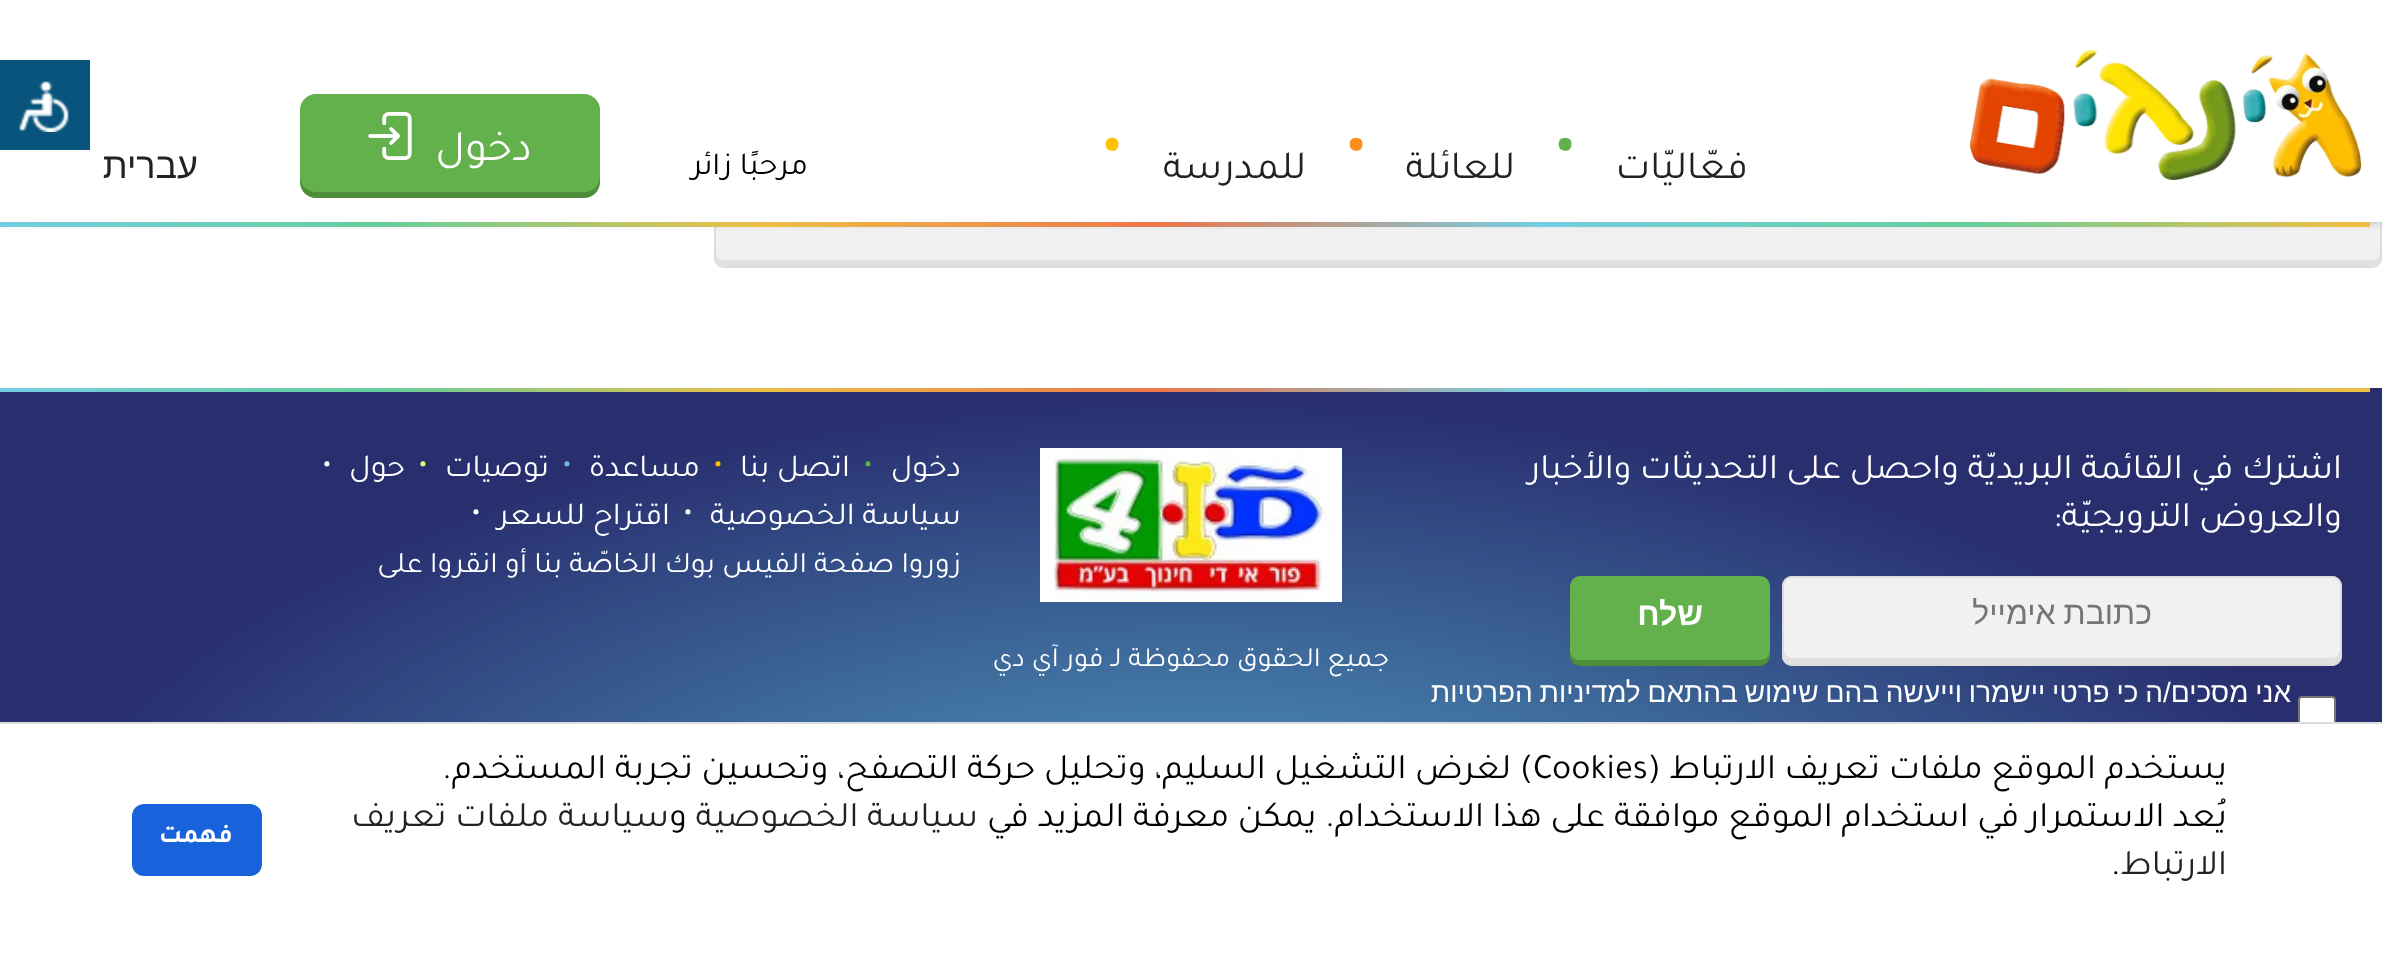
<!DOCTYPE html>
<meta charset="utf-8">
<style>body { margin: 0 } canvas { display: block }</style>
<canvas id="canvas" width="2382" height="955"></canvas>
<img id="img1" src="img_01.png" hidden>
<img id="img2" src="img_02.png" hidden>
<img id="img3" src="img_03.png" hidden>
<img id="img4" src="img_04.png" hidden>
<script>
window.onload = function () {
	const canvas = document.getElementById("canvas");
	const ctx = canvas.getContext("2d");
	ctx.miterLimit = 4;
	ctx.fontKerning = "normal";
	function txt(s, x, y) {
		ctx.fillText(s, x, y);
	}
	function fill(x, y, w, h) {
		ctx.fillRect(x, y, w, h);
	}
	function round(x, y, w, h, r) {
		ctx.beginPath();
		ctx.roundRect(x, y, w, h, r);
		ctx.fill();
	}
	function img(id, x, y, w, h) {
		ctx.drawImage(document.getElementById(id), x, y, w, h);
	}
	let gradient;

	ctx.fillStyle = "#FFFFFF";
	fill(0, 0, 2382, 955);
	ctx.fillStyle = "#F1F1F1";
	round(714, 178, 1668, 90, 10);
	ctx.fillStyle = "#E1E1E1";
	ctx.beginPath();
	ctx.moveTo(716, 252);
	ctx.lineTo(716, 258);
	ctx.bezierCurveTo(716, 262, 720, 266, 724, 266);
	ctx.lineTo(2372, 266);
	ctx.bezierCurveTo(2376, 266, 2380, 262, 2380, 258);
	ctx.lineTo(2380, 252);
	ctx.bezierCurveTo(2380, 256, 2376, 260, 2372, 260);
	ctx.lineTo(724, 260);
	ctx.bezierCurveTo(720, 260, 716, 256, 716, 252);
	ctx.closePath();
	ctx.fill();
	ctx.beginPath();
	ctx.roundRect(715, 179, 1666, 88, 9);
	ctx.strokeStyle = "#DDDDDD";
	ctx.lineWidth = 2;
	ctx.stroke();
	ctx.fillStyle = "rgba(0, 0, 0, 0.27)";
	ctx.filter = "blur(4px)";
	ctx.beginPath();
	ctx.rect(0, 0, 2382, 222);
	ctx.fill();
	ctx.filter = "none";
	ctx.fillStyle = "#FFFFFF";
	fill(0, 0, 2382, 222);
	ctx.fillStyle = "#09547C";
	fill(0, 60, 90, 90);
	img("img1", 19, 81, 50, 51);
	img("img2", 1970, 50, 392, 130);
	ctx.fillStyle = "#62B14C";
	round(300, 94, 300, 104, 16);
	ctx.fillStyle = "rgba(0, 0, 0, 0.2)";
	ctx.beginPath();
	ctx.moveTo(300, 176);
	ctx.lineTo(300, 182);
	ctx.bezierCurveTo(300, 191, 307, 198, 316, 198);
	ctx.lineTo(584, 198);
	ctx.bezierCurveTo(593, 198, 600, 191, 600, 182);
	ctx.lineTo(600, 176);
	ctx.bezierCurveTo(600, 185, 593, 192, 584, 192);
	ctx.lineTo(316, 192);
	ctx.bezierCurveTo(307, 192, 300, 185, 300, 176);
	ctx.closePath();
	ctx.fill();
	img("img3", 368, 112, 44, 48);
	gradient = ctx.createLinearGradient(0, 224, 2370, 224);
	gradient.addColorStop(0, "#74CEE4");
	gradient.addColorStop(0.16, "#66CE9C");
	gradient.addColorStop(0.32, "#EDBF47");
	gradient.addColorStop(0.49, "#EC774B");
	gradient.addColorStop(0.65, "#74CEE4");
	gradient.addColorStop(0.83, "#66CE9C");
	gradient.addColorStop(0.99, "#EDBF47");
	gradient.addColorStop(1, "#EDBF47");
	ctx.fillStyle = gradient;
	fill(0, 222, 2370, 5);
	gradient = ctx.createRadialGradient(1191, 2072.09, 0, 1191, 2072.09, 1684);
	gradient.addColorStop(0, "#54A8CA");
	gradient.addColorStop(0.7, "#282E6E");
	ctx.fillStyle = gradient;
	ctx.beginPath();
	ctx.rect(0, 388, 2382, 334);
	ctx.save();
	ctx.clip();
	ctx.scale(1, 742 / 1684);
	ctx.fillRect(0, 0, 2382, 2168);
	ctx.restore();
	gradient = ctx.createLinearGradient(0, 390, 2370, 390);
	gradient.addColorStop(0, "#74CEE4");
	gradient.addColorStop(0.16, "#66CE9C");
	gradient.addColorStop(0.32, "#EDBF47");
	gradient.addColorStop(0.49, "#EC774B");
	gradient.addColorStop(0.65, "#74CEE4");
	gradient.addColorStop(0.83, "#66CE9C");
	gradient.addColorStop(0.99, "#EDBF47");
	gradient.addColorStop(1, "#EDBF47");
	ctx.fillStyle = gradient;
	fill(0, 388, 2370, 4);
	ctx.fillStyle = "#F1F1F1";
	round(1782, 576, 560, 90, 10);
	ctx.fillStyle = "#E1E1E1";
	ctx.beginPath();
	ctx.moveTo(1784, 650);
	ctx.bezierCurveTo(1784, 655, 1783, 662, 1790, 664);
	ctx.lineTo(2334, 664);
	ctx.bezierCurveTo(2341, 662, 2340, 655, 2340, 650);
	ctx.bezierCurveTo(2340, 654, 2336, 658, 2332, 658);
	ctx.lineTo(1792, 658);
	ctx.bezierCurveTo(1788, 658, 1784, 654, 1784, 650);
	ctx.closePath();
	ctx.fill();
	ctx.beginPath();
	ctx.roundRect(1783, 577, 558, 88, 9);
	ctx.stroke();
	ctx.fillStyle = "#62B14C";
	round(1570, 576, 200, 90, 10);
	ctx.fillStyle = "rgba(0, 0, 0, 0.2)";
	ctx.beginPath();
	ctx.moveTo(1570, 650);
	ctx.lineTo(1570, 656);
	ctx.bezierCurveTo(1570, 662, 1574, 666, 1580, 666);
	ctx.lineTo(1760, 666);
	ctx.bezierCurveTo(1766, 666, 1770, 662, 1770, 656);
	ctx.lineTo(1770, 650);
	ctx.bezierCurveTo(1770, 656, 1766, 660, 1760, 660);
	ctx.lineTo(1580, 660);
	ctx.bezierCurveTo(1574, 660, 1570, 656, 1570, 650);
	ctx.closePath();
	ctx.fill();
	ctx.fillStyle = "#FFFFFF";
	ctx.beginPath();
	ctx.roundRect(2299, 697, 36, 36, 3);
	ctx.fill();
	ctx.strokeStyle = "#767676";
	ctx.stroke();
	img("img4", 1040, 448, 302, 154);
	fill(2298, 724, 38, 10);
	ctx.fillStyle = "#DDDDDD";
	fill(0, 722, 2382, 2);
	ctx.fillStyle = "#1863DC";
	round(132, 804, 130, 72, 12);
	ctx.font = "152px Tajawal";
	ctx.fillStyle = "#62B14C";
	txt(".", 1545, 150);
	ctx.direction = "rtl";
	ctx.font = "40px Tajawal";
	ctx.fillStyle = "#222222";
	txt("فعّاليّات", 1748, 178);
	ctx.direction = "ltr";
	ctx.font = "152px Tajawal";
	ctx.fillStyle = "#FF8D1B";
	txt(".", 1336, 150);
	ctx.direction = "rtl";
	ctx.font = "40px Tajawal";
	ctx.fillStyle = "#222222";
	txt("للعائلة", 1515, 178);
	ctx.direction = "ltr";
	ctx.font = "152px Tajawal";
	ctx.fillStyle = "#FCC200";
	txt(".", 1092, 150);
	ctx.direction = "rtl";
	ctx.font = "40px Tajawal";
	ctx.fillStyle = "#222222";
	txt("للمدرسة", 1306, 178);
	ctx.font = "32px Tajawal";
	ctx.fillStyle = "#000000";
	txt("مرحبًا زائر", 808, 174);
	ctx.font = "44px Tajawal";
	ctx.fillStyle = "#FFFFFF";
	txt("دخول", 532, 160);
	ctx.font = "36px Liberation Sans";
	ctx.fillStyle = "#222222";
	txt("עברית", 198, 178);
	ctx.font = "36px Tajawal";
	ctx.fillStyle = "#FFFFFF";
	txt("اشترك في القائمة البريديّة واحصل على التحديثات والأخبار", 2342, 478);
	txt("والعروض الترويجيّة:", 2342, 526);
	ctx.wordSpacing = "-1px";
	ctx.font = "32px Liberation Sans";
	ctx.fillStyle = "#757575";
	txt("כתובת אימייל", 2152, 624);
	ctx.wordSpacing = "0px";
	ctx.font = "bold 32px Liberation Sans";
	ctx.fillStyle = "#FFFFFF";
	txt("שלח", 1703, 625);
	ctx.wordSpacing = "-1px";
	ctx.font = "28px Liberation Sans";
	txt("אני מסכים/ה כי פרטי יישמרו וייעשה בהם שימוש בהתאם למדיניות הפרטיות", 2291, 702);
	ctx.wordSpacing = "0px";
	ctx.font = "32px Tajawal";
	txt("دخول", 961, 476);
	ctx.direction = "ltr";
	ctx.font = "60px Tajawal";
	ctx.fillStyle = "#62B14C";
	txt(".", 860, 466);
	ctx.direction = "rtl";
	ctx.font = "32px Tajawal";
	ctx.fillStyle = "#FFFFFF";
	txt("اتصل بنا", 850, 476);
	ctx.direction = "ltr";
	ctx.font = "60px Tajawal";
	ctx.fillStyle = "#FCC200";
	txt(".", 710, 466);
	ctx.direction = "rtl";
	ctx.font = "32px Tajawal";
	ctx.fillStyle = "#FFFFFF";
	txt("مساعدة", 700, 476);
	ctx.direction = "ltr";
	ctx.font = "60px Tajawal";
	ctx.fillStyle = "#6FBEDB";
	txt(".", 559, 466);
	ctx.direction = "rtl";
	ctx.font = "32px Tajawal";
	ctx.fillStyle = "#FFFFFF";
	txt("توصيات", 549, 476);
	ctx.direction = "ltr";
	ctx.font = "60px Tajawal";
	ctx.fillStyle = "#E6FF78";
	txt(".", 415, 466);
	ctx.direction = "rtl";
	ctx.font = "32px Tajawal";
	ctx.fillStyle = "#FFFFFF";
	txt("حول", 405, 476);
	ctx.direction = "ltr";
	ctx.font = "60px Tajawal";
	txt(".", 319, 466);
	ctx.direction = "rtl";
	ctx.font = "32px Tajawal";
	txt("سياسة الخصوصية", 961, 524);
	ctx.direction = "ltr";
	ctx.font = "60px Tajawal";
	txt(".", 680, 514);
	ctx.direction = "rtl";
	ctx.font = "32px Tajawal";
	txt("اقتراح للسعر", 670, 524);
	ctx.direction = "ltr";
	ctx.font = "60px Tajawal";
	txt(".", 468, 514);
	ctx.direction = "rtl";
	ctx.font = "30px Tajawal";
	txt("زوروا صفحة الفيس بوك الخاصّة بنا أو انقروا على", 961, 572);
	ctx.font = "28px Tajawal";
	txt("جميع الحقوق محفوظة لـ فور آي دي", 1389, 666);
	ctx.font = "36px Tajawal";
	ctx.fillStyle = "#000000";
	txt("يستخدم الموقع ملفات تعريف الارتباط (", 2227, 778);
	ctx.direction = "ltr";
	txt("Cookies", 1533, 778);
	ctx.direction = "rtl";
	txt(") لغرض التشغيل السليم، وتحليل حركة التصفح، وتحسين تجربة المستخدم.", 1533, 778);
	txt("يُعد الاستمرار في استخدام الموقع موافقة على هذا الاستخدام. يمكن معرفة المزيد في", 2227, 826);
	ctx.fillStyle = "#222222";
	txt("سياسة الخصوصية", 978, 826);
	ctx.fillStyle = "#000000";
	txt("و", 687, 826);
	ctx.fillStyle = "#222222";
	txt("سياسة ملفات تعريف", 669, 826);
	txt("الارتباط", 2227, 874);
	ctx.direction = "ltr";
	ctx.fillStyle = "#000000";
	txt(".", 2111, 874);
	ctx.direction = "rtl";
	ctx.font = "bold 26px Tajawal";
	ctx.fillStyle = "#FFFFFF";
	txt("فهمت", 233, 842);
};
</script>
